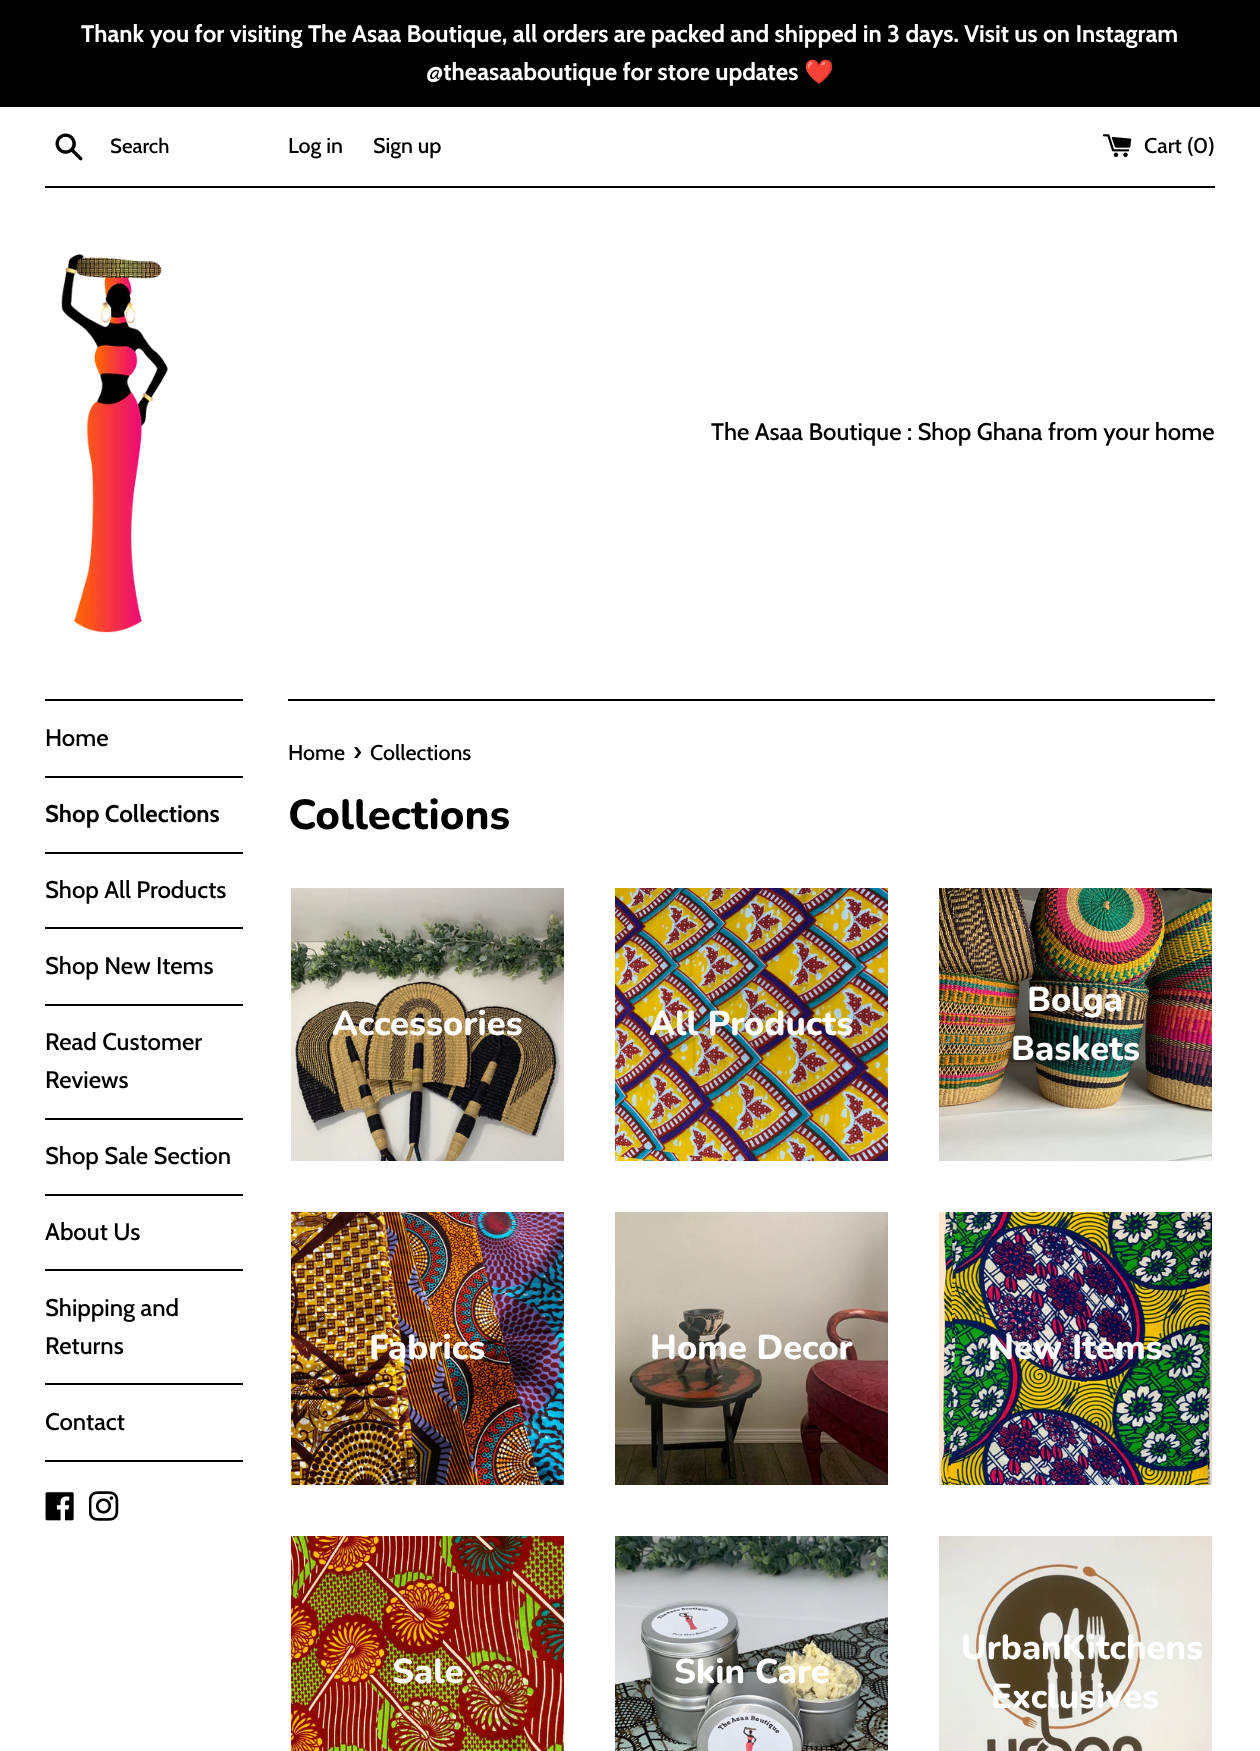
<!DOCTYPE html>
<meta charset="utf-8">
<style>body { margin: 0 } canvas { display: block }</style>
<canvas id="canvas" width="1260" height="1751"></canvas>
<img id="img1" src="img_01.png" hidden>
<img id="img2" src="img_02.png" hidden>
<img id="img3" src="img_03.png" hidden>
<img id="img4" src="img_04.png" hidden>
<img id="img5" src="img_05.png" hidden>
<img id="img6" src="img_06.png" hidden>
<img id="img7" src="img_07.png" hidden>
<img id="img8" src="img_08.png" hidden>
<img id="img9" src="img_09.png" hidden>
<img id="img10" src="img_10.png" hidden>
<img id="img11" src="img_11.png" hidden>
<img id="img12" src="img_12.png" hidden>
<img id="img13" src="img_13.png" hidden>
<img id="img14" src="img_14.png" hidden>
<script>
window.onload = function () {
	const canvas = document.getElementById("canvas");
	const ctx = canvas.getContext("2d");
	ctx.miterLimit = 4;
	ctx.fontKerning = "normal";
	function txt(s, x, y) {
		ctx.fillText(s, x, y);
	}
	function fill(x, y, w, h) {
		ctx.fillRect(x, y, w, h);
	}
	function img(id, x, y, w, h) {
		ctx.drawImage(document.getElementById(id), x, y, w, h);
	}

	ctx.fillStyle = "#FFFFFF";
	fill(0, 0, 1260, 1751);
	ctx.fillStyle = "#000000";
	fill(0, 0, 1260, 107);
	img("img1", 55, 133, 28, 28);
	img("img2", 1103, 134, 29, 24);
	fill(45, 186, 1170, 2);
	img("img3", 61, 254, 107, 379);
	fill(45, 699, 198, 2);
	fill(45, 776, 198, 2);
	fill(45, 852, 198, 2);
	fill(45, 927, 198, 2);
	fill(45, 1004, 198, 2);
	fill(45, 1118, 198, 2);
	fill(45, 1194, 198, 2);
	fill(45, 1269, 198, 2);
	fill(45, 1383, 198, 2);
	fill(45, 1460, 198, 2);
	img("img4", 45, 1492, 29, 29);
	img("img5", 89, 1491, 30, 30);
	fill(288, 699, 927, 2);
	img("img6", 291, 888, 273, 273);
	img("img7", 615, 888, 273, 273);
	img("img8", 939, 888, 273, 273);
	img("img9", 291, 1212, 273, 273);
	img("img10", 615, 1212, 273, 273);
	img("img11", 939, 1212, 273, 273);
	img("img12", 291, 1536, 273, 215);
	img("img13", 615, 1536, 273, 215);
	img("img14", 939, 1536, 273, 215);
	ctx.font = "bold 24px Cabin";
	ctx.fillStyle = "#FFFFFF";
	txt("Thank you for visiting The Asaa Boutique, all orders are packed and shipped in 3 days. Visit us on Instagram", 81, 42);
	txt("@theasaaboutique for store updates", 426, 80);
	ctx.font = "bold 24px Noto Color Emoji";
	txt("❤️", 804, 80);
	ctx.font = "500 20.5px Cabin";
	ctx.fillStyle = "#000000";
	txt("Search", 110, 153);
	ctx.font = "500 21.5px Cabin";
	txt("Log in", 288, 153);
	txt("Sign up", 373, 153);
	txt("Cart (", 1144, 153);
	txt("0", 1193, 153);
	txt(")", 1208, 153);
	ctx.font = "500 24px Cabin";
	txt("The Asaa Boutique : Shop Ghana from your home", 711, 440);
	txt("Home", 45, 746);
	ctx.font = "bold 24px Cabin";
	txt("Shop Collections", 45, 822);
	ctx.font = "500 24px Cabin";
	txt("Shop All Products", 45, 898);
	txt("Shop New Items", 45, 974);
	txt("Read Customer", 45, 1050);
	txt("Reviews", 45, 1088);
	txt("Shop Sale Section", 45, 1164);
	txt("About Us", 45, 1240);
	txt("Shipping and", 45, 1316);
	txt("Returns", 45, 1354);
	txt("Contact", 45, 1430);
	ctx.font = "500 21.5px Cabin";
	txt("Home", 288, 760);
	ctx.font = "500 26px Cabin";
	txt("›", 353, 760);
	ctx.font = "500 21.5px Cabin";
	txt("Collections", 370, 760);
	ctx.font = "800 42px Nunito";
	txt("Collections", 288, 829);
	ctx.font = "800 34.5px Nunito";
	ctx.fillStyle = "#FFFFFF";
	txt("Accessories", 332, 1035);
	txt("All Products", 649, 1035);
	txt("Bolga", 1027, 1011);
	txt("Baskets", 1011, 1060);
	txt("Fabrics", 369, 1359);
	txt("Home Decor", 650, 1359);
	txt("New Items", 988, 1359);
	txt("Sale", 392, 1683);
	txt("Skin Care", 674, 1683);
	txt("UrbanKitchens", 961, 1659);
	txt("Exclusives", 991, 1708);
};
</script>
